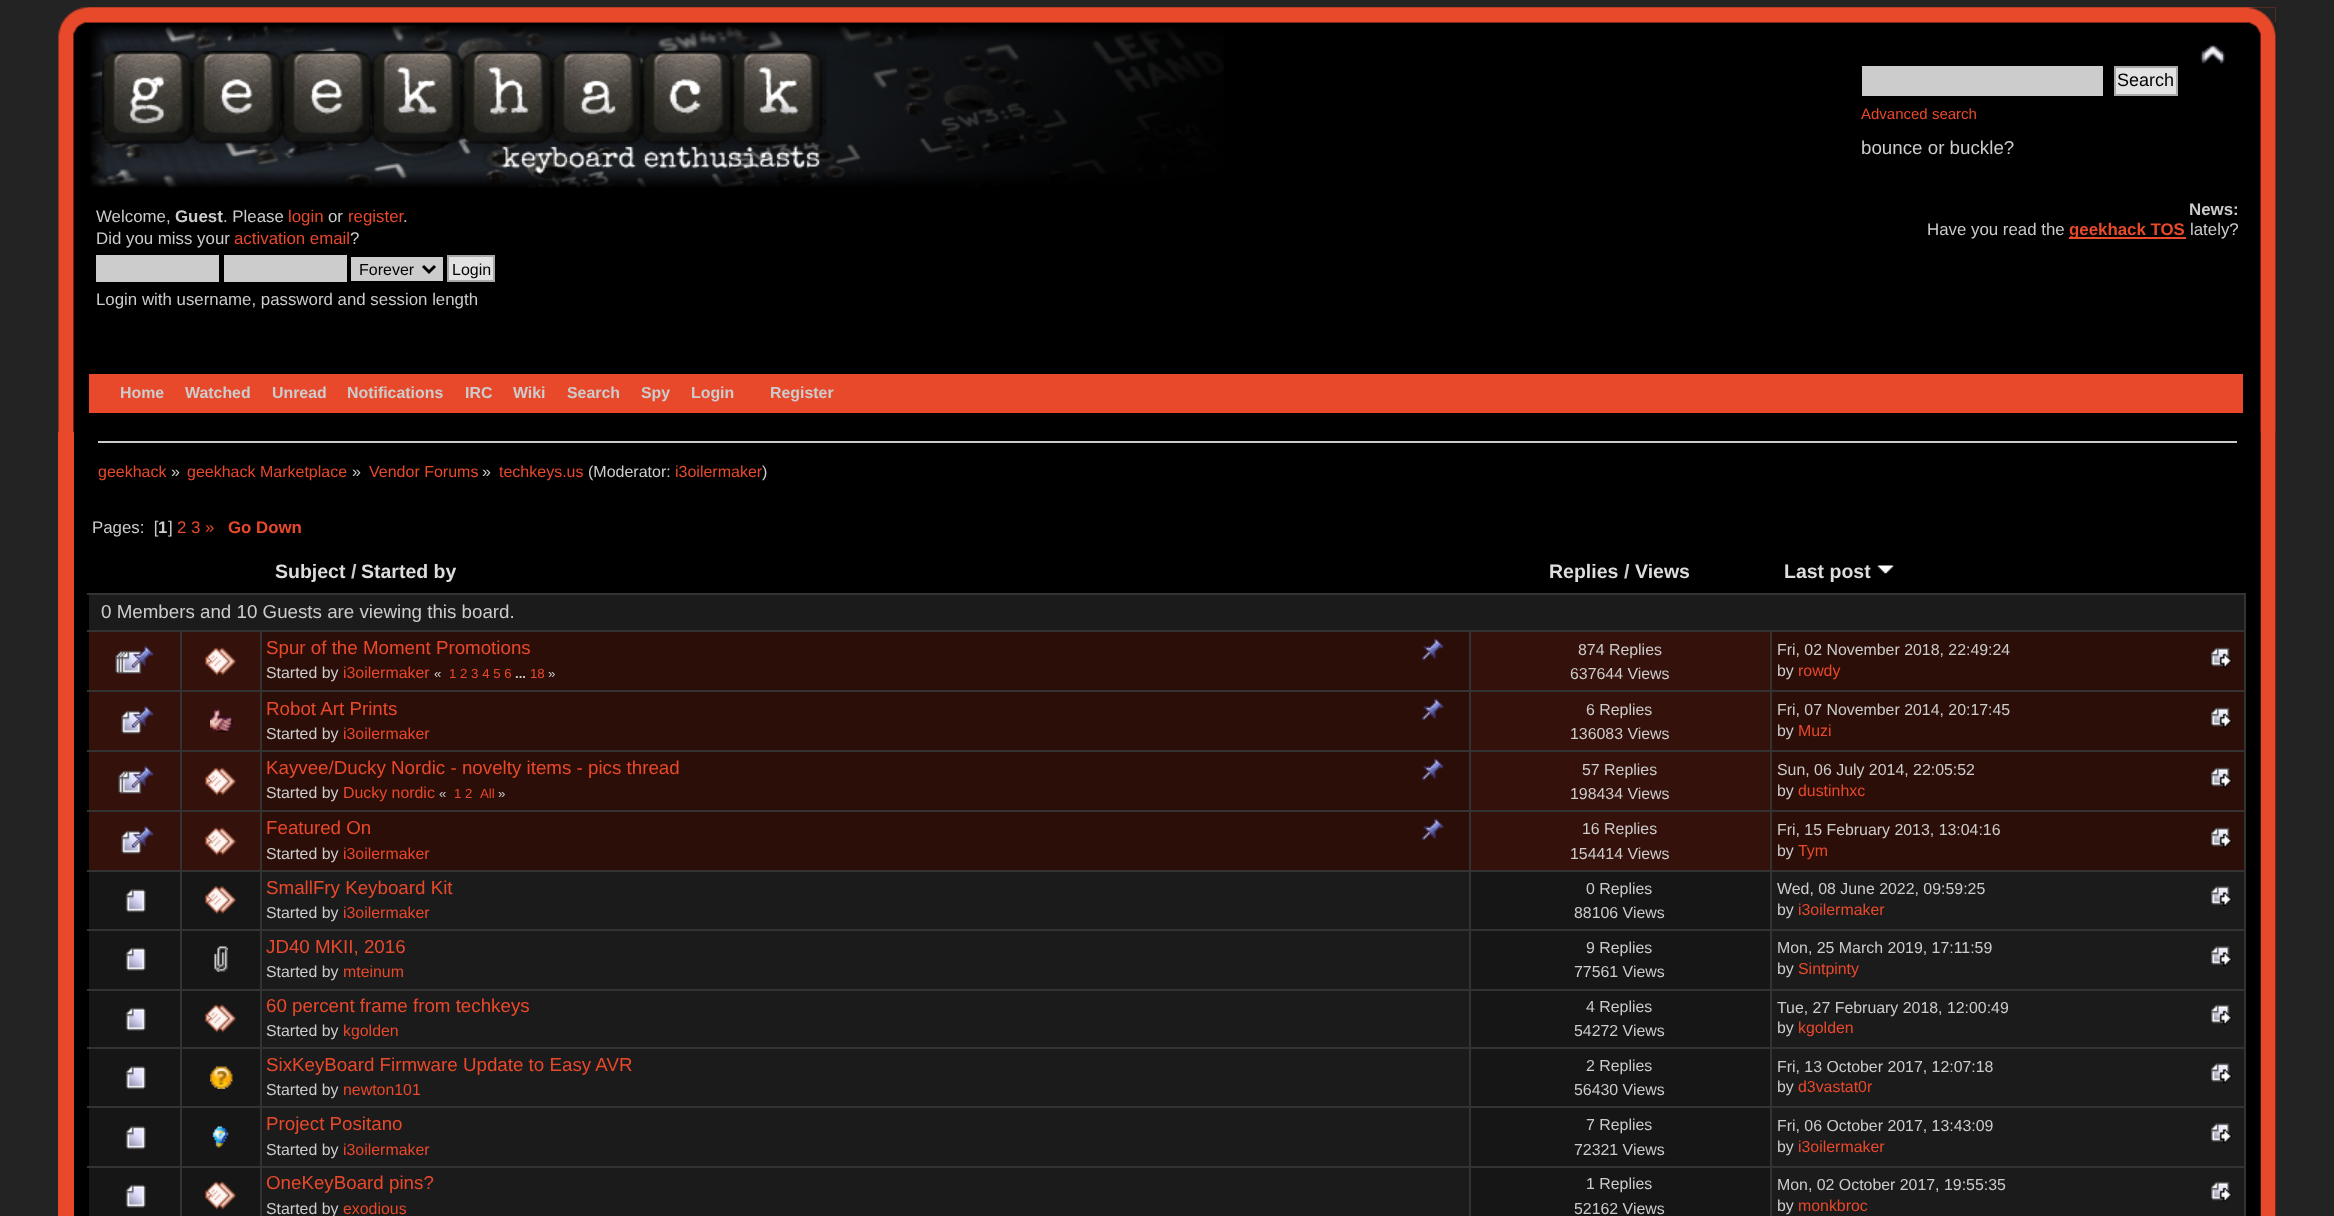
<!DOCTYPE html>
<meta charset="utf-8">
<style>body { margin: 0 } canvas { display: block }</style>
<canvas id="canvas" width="2334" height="1216"></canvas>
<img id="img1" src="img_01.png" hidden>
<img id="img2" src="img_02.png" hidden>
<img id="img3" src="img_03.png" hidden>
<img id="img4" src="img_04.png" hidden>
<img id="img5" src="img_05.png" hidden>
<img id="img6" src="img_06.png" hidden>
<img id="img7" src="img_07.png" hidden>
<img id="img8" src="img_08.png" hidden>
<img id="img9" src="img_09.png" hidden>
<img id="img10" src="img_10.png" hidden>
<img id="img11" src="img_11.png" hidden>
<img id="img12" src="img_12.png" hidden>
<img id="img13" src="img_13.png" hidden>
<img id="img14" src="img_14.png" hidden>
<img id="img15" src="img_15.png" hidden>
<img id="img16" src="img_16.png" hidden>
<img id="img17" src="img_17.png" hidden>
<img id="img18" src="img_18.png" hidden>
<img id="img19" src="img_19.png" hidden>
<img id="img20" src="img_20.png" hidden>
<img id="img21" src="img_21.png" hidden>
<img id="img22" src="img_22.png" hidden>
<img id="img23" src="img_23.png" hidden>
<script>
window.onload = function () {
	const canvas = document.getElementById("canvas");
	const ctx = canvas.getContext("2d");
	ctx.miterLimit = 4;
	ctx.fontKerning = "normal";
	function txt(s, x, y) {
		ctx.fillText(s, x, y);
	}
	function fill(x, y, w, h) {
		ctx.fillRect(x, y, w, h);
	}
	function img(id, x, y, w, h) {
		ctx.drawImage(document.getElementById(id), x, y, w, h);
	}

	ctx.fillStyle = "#232323";
	fill(0, 0, 2334, 1216);
	img("img1", 58, 7, 2218, 425);
	img("img2", 88, 7, 2188, 425);
	img("img3", 90, 25, 1134, 163);
	img("img4", 94, 40, 733, 135);
	img("img5", 2200, 44, 25, 20);
	ctx.fillStyle = "#CCCCCC";
	fill(1862, 66, 241, 30);
	ctx.fillStyle = "#E2E2E2";
	ctx.beginPath();
	ctx.rect(2115, 67, 62, 28);
	ctx.fill();
	ctx.strokeStyle = "#A8A8A8";
	ctx.lineWidth = 2;
	ctx.stroke();
	ctx.fillStyle = "#CCCCCC";
	fill(96, 255, 123, 27);
	fill(224, 255, 123, 27);
	fill(351, 257, 92, 24);
	ctx.beginPath();
	ctx.moveTo(423, 266);
	ctx.lineTo(429, 272);
	ctx.lineTo(435, 266);
	ctx.strokeStyle = "#000000";
	ctx.lineWidth = 3;
	ctx.stroke();
	ctx.fillStyle = "#E2E2E2";
	ctx.beginPath();
	ctx.rect(448, 256, 46, 25);
	ctx.fill();
	ctx.strokeStyle = "#A8A8A8";
	ctx.lineWidth = 2;
	ctx.stroke();
	ctx.fillStyle = "#E9492B";
	fill(2069, 237, 117, 2);
	fill(89, 374, 2154, 39);
	ctx.fillStyle = "#000000";
	fill(74, 432, 2202, 784);
	ctx.fillStyle = "#E9492B";
	fill(58, 432, 16, 784);
	img("img6", 2260, 432, 16, 784);
	ctx.fillStyle = "#CCCCCC";
	fill(98, 441, 2139, 2);
	ctx.fillStyle = "#333333";
	fill(87, 593, 2159, 2);
	img("img7", 1877, 565, 17, 9);
	ctx.fillStyle = "#1B1B1B";
	fill(89, 595, 2155, 35);
	ctx.fillStyle = "#333333";
	fill(1770, 1166, 2, 50);
	fill(2244, 593, 2, 623);
	fill(1770, 1166, 476, 2);
	fill(1770, 1106, 2, 61);
	fill(1770, 1106, 476, 2);
	fill(1770, 1047, 2, 60);
	fill(1770, 1047, 476, 2);
	fill(1770, 989, 2, 60);
	fill(1770, 989, 476, 2);
	fill(1770, 929, 2, 61);
	fill(1770, 929, 476, 2);
	fill(1770, 870, 2, 60);
	fill(1770, 870, 476, 2);
	fill(1770, 810, 2, 62);
	fill(1770, 810, 476, 2);
	fill(1770, 750, 2, 62);
	fill(1770, 750, 476, 2);
	fill(1770, 690, 2, 62);
	fill(1770, 690, 476, 2);
	fill(1770, 630, 2, 62);
	fill(1469, 1166, 2, 50);
	fill(1469, 1166, 303, 2);
	fill(1469, 1106, 2, 61);
	fill(1469, 1106, 303, 2);
	fill(1469, 1047, 2, 60);
	fill(1469, 1047, 303, 2);
	fill(1469, 989, 2, 60);
	fill(1469, 989, 303, 2);
	fill(1469, 929, 2, 61);
	fill(1469, 929, 303, 2);
	fill(1469, 870, 2, 60);
	fill(1469, 870, 303, 2);
	fill(1469, 810, 2, 62);
	fill(1469, 810, 303, 2);
	fill(1469, 750, 2, 62);
	fill(1469, 750, 303, 2);
	fill(1469, 690, 2, 62);
	fill(1469, 690, 303, 2);
	fill(1469, 630, 2, 62);
	fill(260, 1166, 2, 50);
	fill(260, 1166, 1210, 2);
	fill(260, 1106, 2, 61);
	fill(260, 1106, 1210, 2);
	fill(260, 1047, 2, 60);
	fill(260, 1047, 1210, 2);
	fill(260, 989, 2, 60);
	fill(260, 989, 1210, 2);
	fill(260, 929, 2, 61);
	fill(260, 929, 1210, 2);
	fill(260, 870, 2, 60);
	fill(260, 870, 1210, 2);
	fill(260, 810, 2, 62);
	fill(260, 810, 1210, 2);
	fill(260, 750, 2, 62);
	fill(260, 750, 1210, 2);
	fill(260, 690, 2, 62);
	fill(260, 690, 1210, 2);
	fill(260, 630, 2, 62);
	fill(180, 1166, 2, 50);
	fill(180, 1166, 81, 2);
	fill(180, 1106, 2, 61);
	fill(180, 1106, 81, 2);
	fill(180, 1047, 2, 60);
	fill(180, 1047, 81, 2);
	fill(180, 989, 2, 60);
	fill(180, 989, 81, 2);
	fill(180, 929, 2, 61);
	fill(180, 929, 81, 2);
	fill(180, 870, 2, 60);
	fill(180, 870, 81, 2);
	fill(180, 810, 2, 62);
	fill(180, 810, 81, 2);
	fill(180, 750, 2, 62);
	fill(180, 750, 81, 2);
	fill(180, 690, 2, 62);
	fill(180, 690, 81, 2);
	fill(180, 630, 2, 62);
	fill(87, 630, 2159, 2);
	ctx.fillStyle = "#34110A";
	fill(89, 632, 91, 58);
	ctx.fillStyle = "#333333";
	fill(87, 690, 95, 2);
	img("img8", 115, 646, 38, 28);
	ctx.fillStyle = "#34110A";
	fill(182, 632, 78, 58);
	img("img9", 205, 647, 31, 29);
	ctx.fillStyle = "#2B0E08";
	fill(262, 632, 1207, 58);
	img("img10", 1421, 638, 23, 23);
	ctx.fillStyle = "#34110A";
	fill(1471, 632, 299, 58);
	ctx.fillStyle = "#2B0E08";
	fill(1772, 632, 472, 58);
	img("img11", 2211, 647, 21, 21);
	ctx.fillStyle = "#34110A";
	fill(89, 692, 91, 58);
	ctx.fillStyle = "#333333";
	fill(87, 750, 95, 2);
	img("img12", 121, 706, 32, 28);
	ctx.fillStyle = "#34110A";
	fill(182, 692, 78, 58);
	img("img13", 210, 709, 23, 23);
	ctx.fillStyle = "#2B0E08";
	fill(262, 692, 1207, 58);
	img("img10", 1421, 698, 23, 23);
	ctx.fillStyle = "#34110A";
	fill(1471, 692, 299, 58);
	ctx.fillStyle = "#2B0E08";
	fill(1772, 692, 472, 58);
	img("img11", 2211, 707, 21, 21);
	ctx.fillStyle = "#34110A";
	fill(89, 752, 91, 58);
	ctx.fillStyle = "#333333";
	fill(87, 810, 95, 2);
	img("img14", 118, 766, 35, 28);
	ctx.fillStyle = "#34110A";
	fill(182, 752, 78, 58);
	img("img9", 205, 767, 31, 29);
	ctx.fillStyle = "#2B0E08";
	fill(262, 752, 1207, 58);
	img("img10", 1421, 758, 23, 23);
	ctx.fillStyle = "#34110A";
	fill(1471, 752, 299, 58);
	ctx.fillStyle = "#2B0E08";
	fill(1772, 752, 472, 58);
	img("img11", 2211, 767, 21, 21);
	ctx.fillStyle = "#34110A";
	fill(89, 812, 91, 58);
	ctx.fillStyle = "#333333";
	fill(87, 870, 95, 2);
	img("img12", 121, 826, 32, 28);
	ctx.fillStyle = "#34110A";
	fill(182, 812, 78, 58);
	img("img9", 205, 827, 31, 29);
	ctx.fillStyle = "#2B0E08";
	fill(262, 812, 1207, 58);
	img("img10", 1421, 818, 23, 23);
	ctx.fillStyle = "#34110A";
	fill(1471, 812, 299, 58);
	ctx.fillStyle = "#2B0E08";
	fill(1772, 812, 472, 58);
	img("img11", 2211, 827, 21, 21);
	ctx.fillStyle = "#161616";
	fill(89, 872, 91, 57);
	ctx.fillStyle = "#333333";
	fill(87, 929, 95, 2);
	img("img15", 125, 889, 21, 24);
	ctx.fillStyle = "#161616";
	fill(182, 872, 78, 57);
	img("img16", 205, 886, 31, 28);
	ctx.fillStyle = "#1B1B1B";
	fill(262, 872, 1207, 57);
	ctx.fillStyle = "#161616";
	fill(1471, 872, 299, 57);
	ctx.fillStyle = "#1B1B1B";
	fill(1772, 872, 472, 57);
	img("img17", 2211, 886, 21, 20);
	ctx.fillStyle = "#161616";
	fill(89, 931, 91, 58);
	ctx.fillStyle = "#333333";
	fill(87, 989, 95, 2);
	img("img18", 125, 947, 21, 24);
	ctx.fillStyle = "#161616";
	fill(182, 931, 78, 58);
	img("img19", 214, 946, 14, 26);
	ctx.fillStyle = "#1B1B1B";
	fill(262, 931, 1207, 58);
	ctx.fillStyle = "#161616";
	fill(1471, 931, 299, 58);
	ctx.fillStyle = "#1B1B1B";
	fill(1772, 931, 472, 58);
	img("img17", 2211, 946, 21, 20);
	ctx.fillStyle = "#161616";
	fill(89, 991, 91, 56);
	ctx.fillStyle = "#333333";
	fill(87, 1047, 95, 2);
	img("img18", 125, 1007, 21, 24);
	ctx.fillStyle = "#161616";
	fill(182, 991, 78, 56);
	img("img20", 205, 1004, 31, 29);
	ctx.fillStyle = "#1B1B1B";
	fill(262, 991, 1207, 56);
	ctx.fillStyle = "#161616";
	fill(1471, 991, 299, 56);
	ctx.fillStyle = "#1B1B1B";
	fill(1772, 991, 472, 56);
	img("img21", 2211, 1004, 21, 21);
	ctx.fillStyle = "#161616";
	fill(89, 1049, 91, 57);
	ctx.fillStyle = "#333333";
	fill(87, 1106, 95, 2);
	img("img15", 125, 1066, 21, 24);
	ctx.fillStyle = "#161616";
	fill(182, 1049, 78, 57);
	img("img22", 210, 1066, 23, 23);
	ctx.fillStyle = "#1B1B1B";
	fill(262, 1049, 1207, 57);
	ctx.fillStyle = "#161616";
	fill(1471, 1049, 299, 57);
	ctx.fillStyle = "#1B1B1B";
	fill(1772, 1049, 472, 57);
	img("img17", 2211, 1063, 21, 20);
	ctx.fillStyle = "#161616";
	fill(89, 1108, 91, 58);
	ctx.fillStyle = "#333333";
	fill(87, 1166, 95, 2);
	img("img15", 125, 1126, 21, 24);
	ctx.fillStyle = "#161616";
	fill(182, 1108, 78, 58);
	img("img23", 212, 1126, 17, 22);
	ctx.fillStyle = "#1B1B1B";
	fill(262, 1108, 1207, 58);
	ctx.fillStyle = "#161616";
	fill(1471, 1108, 299, 58);
	ctx.fillStyle = "#1B1B1B";
	fill(1772, 1108, 472, 58);
	img("img17", 2211, 1123, 21, 20);
	ctx.fillStyle = "#161616";
	fill(89, 1168, 91, 48);
	img("img18", 125, 1184, 21, 24);
	fill(182, 1168, 78, 48);
	img("img20", 205, 1181, 31, 29);
	ctx.fillStyle = "#1B1B1B";
	fill(262, 1168, 1207, 48);
	ctx.fillStyle = "#161616";
	fill(1471, 1168, 299, 48);
	ctx.fillStyle = "#1B1B1B";
	fill(1772, 1168, 472, 48);
	img("img21", 2211, 1181, 21, 21);
	ctx.font = "18px Liberation Sans";
	ctx.fillStyle = "#000000";
	txt("Search", 2117, 86);
	ctx.font = "15px Liberation Sans";
	ctx.fillStyle = "#E9492B";
	txt("Advanced search", 1861, 119);
	ctx.font = "18.75px Liberation Sans";
	ctx.fillStyle = "#CCCCCC";
	txt("bounce or buckle?", 1861, 154);
	ctx.font = "16.85px Liberation Sans";
	txt("Welcome,", 96, 222);
	ctx.font = "bold 16.85px Liberation Sans";
	txt("Guest", 175, 222);
	ctx.font = "16.85px Liberation Sans";
	txt(". Please", 223, 222);
	ctx.fillStyle = "#E9492B";
	txt("login", 288, 222);
	ctx.fillStyle = "#CCCCCC";
	txt("or", 328, 222);
	ctx.fillStyle = "#E9492B";
	txt("register", 348, 222);
	ctx.fillStyle = "#CCCCCC";
	txt(".", 403, 222);
	txt("Did you miss your", 96, 244);
	ctx.fillStyle = "#E9492B";
	txt("activation email", 234, 244);
	ctx.fillStyle = "#CCCCCC";
	txt("?", 350, 244);
	ctx.font = "16px Liberation Sans";
	ctx.fillStyle = "#000000";
	txt("Forever", 359, 275);
	txt("Login", 452, 275);
	ctx.font = "16.85px Liberation Sans";
	ctx.fillStyle = "#CCCCCC";
	txt("Login with username, password and session length", 96, 305);
	ctx.font = "bold 16.85px Liberation Sans";
	txt("News:", 2189, 215);
	ctx.font = "16.85px Liberation Sans";
	txt("Have you read the", 1927, 235);
	ctx.font = "bold 16.85px Liberation Sans";
	ctx.fillStyle = "#E9492B";
	txt("geekhack TOS", 2069, 235);
	ctx.font = "16.85px Liberation Sans";
	ctx.fillStyle = "#CCCCCC";
	txt("lately?", 2190, 235);
	ctx.font = "bold 15.9px Liberation Sans";
	txt("Home", 120, 398);
	txt("Watched", 185, 398);
	txt("Unread", 272, 398);
	txt("Notifications", 347, 398);
	txt("IRC", 465, 398);
	txt("Wiki", 513, 398);
	txt("Search", 567, 398);
	txt("Spy", 641, 398);
	txt("Login", 691, 398);
	txt("Register", 770, 398);
	ctx.font = "16px Liberation Sans";
	ctx.fillStyle = "#E9492B";
	txt("geekhack", 98, 477);
	ctx.fillStyle = "#CCCCCC";
	txt("»", 171, 477);
	ctx.fillStyle = "#E9492B";
	txt("geekhack Marketplace", 187, 477);
	ctx.fillStyle = "#CCCCCC";
	txt("»", 352, 477);
	ctx.fillStyle = "#E9492B";
	txt("Vendor Forums", 369, 477);
	ctx.fillStyle = "#CCCCCC";
	txt("»", 482, 477);
	ctx.fillStyle = "#E9492B";
	txt("techkeys.us", 499, 477);
	ctx.fillStyle = "#CCCCCC";
	txt("(Moderator:", 588, 477);
	ctx.fillStyle = "#E9492B";
	txt("i3oilermaker", 675, 477);
	ctx.fillStyle = "#CCCCCC";
	txt(")", 762, 477);
	ctx.font = "16.85px Liberation Sans";
	txt("Pages:  [", 92, 533);
	ctx.font = "bold 16.85px Liberation Sans";
	txt("1", 158, 533);
	ctx.font = "16.85px Liberation Sans";
	txt("]", 168, 533);
	ctx.fillStyle = "#E9492B";
	txt("2 3 »", 177, 533);
	ctx.font = "bold 16.85px Liberation Sans";
	txt("Go Down", 228, 533);
	ctx.font = "bold 19.5px Liberation Sans";
	ctx.fillStyle = "#DDDDDD";
	txt("Subject", 275, 578);
	ctx.fillStyle = "#CCCCCC";
	txt("/", 351, 578);
	ctx.fillStyle = "#DDDDDD";
	txt("Started by", 361, 578);
	txt("Replies", 1549, 578);
	ctx.fillStyle = "#CCCCCC";
	txt("/", 1624, 578);
	ctx.fillStyle = "#DDDDDD";
	txt("Views", 1635, 578);
	txt("Last post", 1784, 578);
	ctx.font = "18.75px Liberation Sans";
	ctx.fillStyle = "#CCCCCC";
	txt("0 Members and 10 Guests are viewing this board.", 101, 618);
	ctx.fillStyle = "#E9492B";
	txt("Spur of the Moment Promotions", 266, 654);
	ctx.font = "15.9px Liberation Sans";
	ctx.fillStyle = "#CCCCCC";
	txt("Started by", 266, 678);
	ctx.fillStyle = "#E9492B";
	txt("i3oilermaker", 343, 678);
	ctx.font = "13.25px Liberation Sans";
	ctx.fillStyle = "#CCCCCC";
	txt("«", 434, 678);
	ctx.fillStyle = "#E9492B";
	txt("1 2 3 4 5 6", 449, 678);
	ctx.font = "bold 13.25px Liberation Sans";
	ctx.fillStyle = "#CCCCCC";
	txt("...", 515, 678);
	ctx.font = "13.25px Liberation Sans";
	ctx.fillStyle = "#E9492B";
	txt("18", 530, 678);
	ctx.fillStyle = "#CCCCCC";
	txt("»", 548, 678);
	ctx.font = "15.9px Liberation Sans";
	txt("874 Replies", 1578, 655);
	txt("637644 Views", 1570, 679);
	txt("Fri, 02 November 2018, 22:49:24", 1777, 655);
	txt("by", 1777, 676);
	ctx.fillStyle = "#E9492B";
	txt("rowdy", 1798, 676);
	ctx.font = "18.75px Liberation Sans";
	txt("Robot Art Prints", 266, 715);
	ctx.font = "15.9px Liberation Sans";
	ctx.fillStyle = "#CCCCCC";
	txt("Started by", 266, 739);
	ctx.fillStyle = "#E9492B";
	txt("i3oilermaker", 343, 739);
	ctx.fillStyle = "#CCCCCC";
	txt("6 Replies", 1586, 715);
	txt("136083 Views", 1570, 739);
	txt("Fri, 07 November 2014, 20:17:45", 1777, 715);
	txt("by", 1777, 736);
	ctx.fillStyle = "#E9492B";
	txt("Muzi", 1798, 736);
	ctx.font = "18.75px Liberation Sans";
	txt("Kayvee/Ducky Nordic - novelty items - pics thread", 266, 774);
	ctx.font = "15.9px Liberation Sans";
	ctx.fillStyle = "#CCCCCC";
	txt("Started by", 266, 798);
	ctx.fillStyle = "#E9492B";
	txt("Ducky nordic", 343, 798);
	ctx.font = "13.25px Liberation Sans";
	ctx.fillStyle = "#CCCCCC";
	txt("«", 439, 798);
	ctx.fillStyle = "#E9492B";
	txt("1 2", 454, 798);
	txt("All", 480, 798);
	ctx.fillStyle = "#CCCCCC";
	txt("»", 498, 798);
	ctx.font = "15.9px Liberation Sans";
	txt("57 Replies", 1582, 775);
	txt("198434 Views", 1570, 799);
	txt("Sun, 06 July 2014, 22:05:52", 1777, 775);
	txt("by", 1777, 796);
	ctx.fillStyle = "#E9492B";
	txt("dustinhxc", 1798, 796);
	ctx.font = "18.75px Liberation Sans";
	txt("Featured On", 266, 834);
	ctx.font = "15.9px Liberation Sans";
	ctx.fillStyle = "#CCCCCC";
	txt("Started by", 266, 859);
	ctx.fillStyle = "#E9492B";
	txt("i3oilermaker", 343, 859);
	ctx.fillStyle = "#CCCCCC";
	txt("16 Replies", 1582, 834);
	txt("154414 Views", 1570, 859);
	txt("Fri, 15 February 2013, 13:04:16", 1777, 835);
	txt("by", 1777, 856);
	ctx.fillStyle = "#E9492B";
	txt("Tym", 1798, 856);
	ctx.font = "18.75px Liberation Sans";
	txt("SmallFry Keyboard Kit", 266, 894);
	ctx.font = "15.9px Liberation Sans";
	ctx.fillStyle = "#CCCCCC";
	txt("Started by", 266, 918);
	ctx.fillStyle = "#E9492B";
	txt("i3oilermaker", 343, 918);
	ctx.fillStyle = "#CCCCCC";
	txt("0 Replies", 1586, 894);
	txt("88106 Views", 1574, 918);
	txt("Wed, 08 June 2022, 09:59:25", 1777, 894);
	txt("by", 1777, 915);
	ctx.fillStyle = "#E9492B";
	txt("i3oilermaker", 1798, 915);
	ctx.font = "18.75px Liberation Sans";
	txt("JD40 MKII, 2016", 266, 953);
	ctx.font = "15.9px Liberation Sans";
	ctx.fillStyle = "#CCCCCC";
	txt("Started by", 266, 977);
	ctx.fillStyle = "#E9492B";
	txt("mteinum", 343, 977);
	ctx.fillStyle = "#CCCCCC";
	txt("9 Replies", 1586, 953);
	txt("77561 Views", 1574, 977);
	txt("Mon, 25 March 2019, 17:11:59", 1777, 953);
	txt("by", 1777, 974);
	ctx.fillStyle = "#E9492B";
	txt("Sintpinty", 1798, 974);
	ctx.font = "18.75px Liberation Sans";
	txt("60 percent frame from techkeys", 266, 1012);
	ctx.font = "15.9px Liberation Sans";
	ctx.fillStyle = "#CCCCCC";
	txt("Started by", 266, 1036);
	ctx.fillStyle = "#E9492B";
	txt("kgolden", 343, 1036);
	ctx.fillStyle = "#CCCCCC";
	txt("4 Replies", 1586, 1012);
	txt("54272 Views", 1574, 1036);
	txt("Tue, 27 February 2018, 12:00:49", 1777, 1013);
	txt("by", 1777, 1033);
	ctx.fillStyle = "#E9492B";
	txt("kgolden", 1798, 1033);
	ctx.font = "18.75px Liberation Sans";
	txt("SixKeyBoard Firmware Update to Easy AVR", 266, 1071);
	ctx.font = "15.9px Liberation Sans";
	ctx.fillStyle = "#CCCCCC";
	txt("Started by", 266, 1095);
	ctx.fillStyle = "#E9492B";
	txt("newton101", 343, 1095);
	ctx.fillStyle = "#CCCCCC";
	txt("2 Replies", 1586, 1071);
	txt("56430 Views", 1574, 1095);
	txt("Fri, 13 October 2017, 12:07:18", 1777, 1072);
	txt("by", 1777, 1092);
	ctx.fillStyle = "#E9492B";
	txt("d3vastat0r", 1798, 1092);
	ctx.font = "18.75px Liberation Sans";
	txt("Project Positano", 266, 1130);
	ctx.font = "15.9px Liberation Sans";
	ctx.fillStyle = "#CCCCCC";
	txt("Started by", 266, 1155);
	ctx.fillStyle = "#E9492B";
	txt("i3oilermaker", 343, 1155);
	ctx.fillStyle = "#CCCCCC";
	txt("7 Replies", 1586, 1130);
	txt("72321 Views", 1574, 1155);
	txt("Fri, 06 October 2017, 13:43:09", 1777, 1131);
	txt("by", 1777, 1152);
	ctx.fillStyle = "#E9492B";
	txt("i3oilermaker", 1798, 1152);
	ctx.font = "18.75px Liberation Sans";
	txt("OneKeyBoard pins?", 266, 1189);
	ctx.font = "15.9px Liberation Sans";
	ctx.fillStyle = "#CCCCCC";
	txt("Started by", 266, 1214);
	ctx.fillStyle = "#E9492B";
	txt("exodious", 343, 1214);
	ctx.fillStyle = "#CCCCCC";
	txt("1 Replies", 1586, 1189);
	txt("52162 Views", 1574, 1214);
	txt("Mon, 02 October 2017, 19:55:35", 1777, 1190);
	txt("by", 1777, 1211);
	ctx.fillStyle = "#E9492B";
	txt("monkbroc", 1798, 1211);
};
</script>
